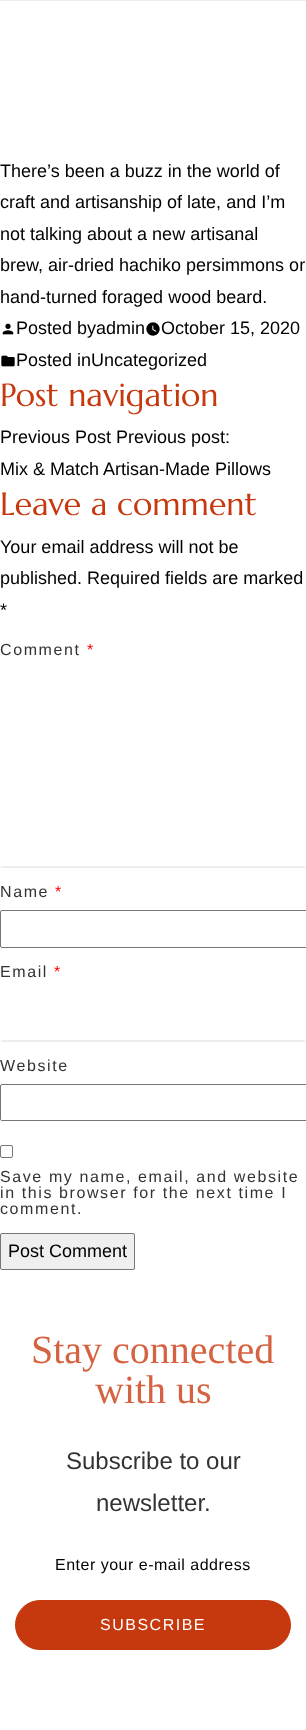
<!DOCTYPE html>
<meta charset="utf-8">
<style>body { margin: 0 } canvas { display: block }</style>
<canvas id="canvas" width="306" height="1730"></canvas>
<img id="img1" src="img_01.png" hidden>
<img id="img2" src="img_02.png" hidden>
<img id="img3" src="img_03.png" hidden>
<script>
window.onload = function () {
	const canvas = document.getElementById("canvas");
	const ctx = canvas.getContext("2d");
	ctx.miterLimit = 4;
	ctx.fontKerning = "normal";
	function txt(s, x, y) {
		ctx.fillText(s, x, y);
	}
	function fill(x, y, w, h) {
		ctx.fillRect(x, y, w, h);
	}
	function img(id, x, y, w, h) {
		ctx.drawImage(document.getElementById(id), x, y, w, h);
	}

	ctx.fillStyle = "#FFFFFF";
	fill(0, 0, 306, 1730);
	ctx.fillStyle = "#ECECEC";
	fill(0, 0, 306, 1);
	img("img1", 2, 323, 12, 12);
	img("img2", 146, 322, 14, 14);
	img("img3", 1, 355, 14, 12);
	ctx.fillStyle = "#EDEDED";
	ctx.beginPath();
	ctx.moveTo(306, 868);
	ctx.lineTo(0, 868);
	ctx.lineTo(2, 866);
	ctx.lineTo(304, 866);
	ctx.closePath();
	ctx.fill();
	ctx.beginPath();
	ctx.roundRect(0.5, 910.5, 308, 37, 1.5);
	ctx.strokeStyle = "#767676";
	ctx.stroke();
	ctx.beginPath();
	ctx.moveTo(306, 1042);
	ctx.lineTo(0, 1042);
	ctx.lineTo(2, 1040);
	ctx.lineTo(304, 1040);
	ctx.closePath();
	ctx.fill();
	ctx.beginPath();
	ctx.roundRect(0.5, 1084.5, 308, 36, 1.5);
	ctx.stroke();
	ctx.beginPath();
	ctx.roundRect(0.5, 1145.5, 12, 12, 1.5);
	ctx.stroke();
	ctx.fillStyle = "#EFEFEF";
	ctx.beginPath();
	ctx.roundRect(0.5, 1233.5, 134, 36, 1.5);
	ctx.fill();
	ctx.stroke();
	ctx.fillStyle = "#C6380D";
	ctx.beginPath();
	ctx.roundRect(15.5, 1600.5, 275, 49, 24.5);
	ctx.fill();
	ctx.strokeStyle = "#C6380D";
	ctx.stroke();
	ctx.font = "18px Liberation Sans";
	ctx.fillStyle = "#000000";
	txt("There’s been a buzz in the world of", 0, 177);
	txt("craft and artisanship of late, and I’m", 0, 208);
	txt("not talking about a new artisanal", 0, 240);
	txt("brew, air-dried hachiko persimmons or", 0, 271);
	txt("hand-turned foraged wood beard.", 0, 303);
	txt("Posted byadmin", 16, 334);
	txt("October 15, 2020", 161, 334);
	txt("Posted inUncategorized", 16, 366);
	ctx.font = "32px Marcellus";
	ctx.fillStyle = "#C6380D";
	txt("Post navigation", 0, 406);
	ctx.font = "18px Liberation Sans";
	ctx.fillStyle = "#000000";
	txt("Previous Post Previous post:", 0, 443);
	txt("Mix & Match Artisan-Made Pillows", 0, 475);
	ctx.font = "32px Marcellus";
	ctx.fillStyle = "#C6380D";
	txt("Leave a comment", 0, 515);
	ctx.font = "18px Liberation Sans";
	ctx.fillStyle = "#000000";
	txt("Your email address will not be", 0, 553);
	txt("published. Required fields are marked", 0, 584);
	txt("*", 0, 616);
	ctx.letterSpacing = "1.6px";
	ctx.font = "16px Liberation Sans";
	ctx.fillStyle = "#333333";
	txt("Comment", 0, 655);
	ctx.fillStyle = "#FF0000";
	txt("*", 87, 655);
	ctx.fillStyle = "#333333";
	txt("Name", 0, 897);
	ctx.fillStyle = "#FF0000";
	txt("*", 55, 897);
	ctx.fillStyle = "#333333";
	txt("Email", 0, 977);
	ctx.fillStyle = "#FF0000";
	txt("*", 54, 977);
	ctx.fillStyle = "#333333";
	txt("Website", 0, 1071);
	txt("Save my name, email, and website", 0, 1182);
	txt("in this browser for the next time I", 0, 1198);
	txt("comment.", 0, 1214);
	ctx.letterSpacing = "0px";
	ctx.font = "18px Liberation Sans";
	ctx.fillStyle = "#000000";
	txt("Post Comment", 8, 1257);
	ctx.font = "40px Liberation Serif";
	ctx.fillStyle = "#D56341";
	txt("Stay connected", 31, 1363);
	txt("with us", 95, 1403);
	ctx.font = "24px Liberation Sans";
	ctx.fillStyle = "#333333";
	txt("Subscribe to our", 66, 1469);
	txt("newsletter.", 96, 1511);
	ctx.letterSpacing = "0.5px";
	ctx.font = "16px Liberation Sans";
	ctx.fillStyle = "#000000";
	txt("Enter your e-mail address", 55, 1570);
	ctx.letterSpacing = "1.5px";
	ctx.fillStyle = "#FFFFFF";
	txt("SUBSCRIBE", 100, 1630);
};
</script>
